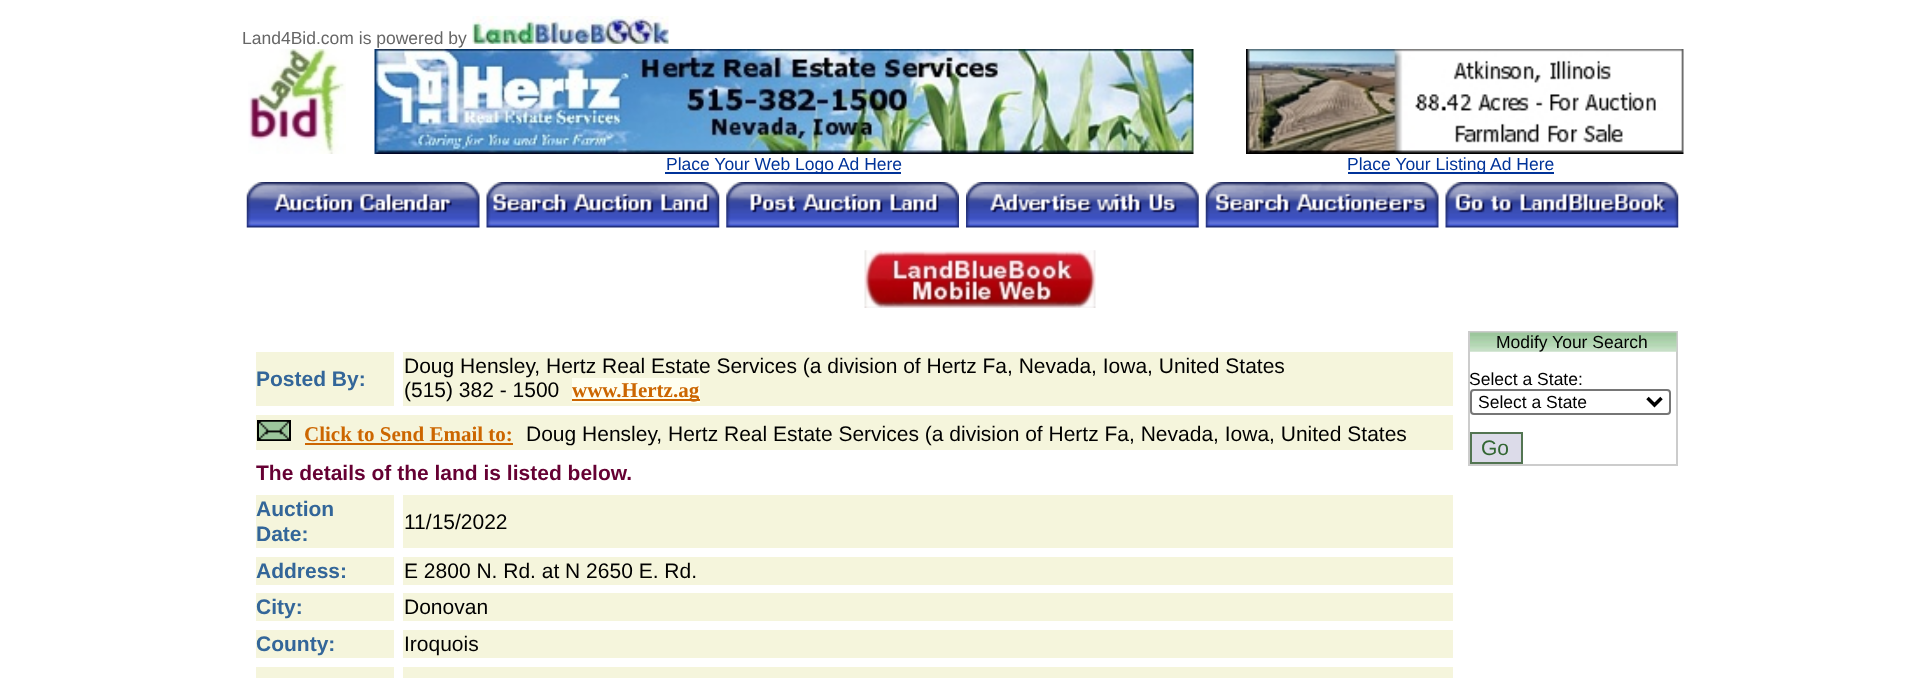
<!DOCTYPE html>
<meta charset="utf-8">
<style>body { margin: 0 } canvas { display: block }</style>
<canvas id="canvas" width="1923" height="678"></canvas>
<img id="img1" src="img_01.png" hidden>
<img id="img2" src="img_02.png" hidden>
<img id="img3" src="img_03.png" hidden>
<img id="img4" src="img_04.png" hidden>
<img id="img5" src="img_05.png" hidden>
<img id="img6" src="img_06.png" hidden>
<img id="img7" src="img_07.png" hidden>
<img id="img8" src="img_08.png" hidden>
<img id="img9" src="img_09.png" hidden>
<img id="img10" src="img_10.png" hidden>
<img id="img11" src="img_11.png" hidden>
<img id="img12" src="img_12.png" hidden>
<img id="img13" src="img_13.png" hidden>
<script>
window.onload = function () {
	const canvas = document.getElementById("canvas");
	const ctx = canvas.getContext("2d");
	ctx.miterLimit = 4;
	ctx.fontKerning = "normal";
	function txt(s, x, y) {
		ctx.fillText(s, x, y);
	}
	function fill(x, y, w, h) {
		ctx.fillRect(x, y, w, h);
	}
	function img(id, x, y, w, h) {
		ctx.drawImage(document.getElementById(id), x, y, w, h);
	}

	ctx.fillStyle = "#FFFFFF";
	fill(0, 0, 1923, 678);
	img("img1", 472, 16, 197, 28);
	img("img2", 248, 49, 98, 105);
	img("img3", 374, 49, 820, 105);
	ctx.fillStyle = "#003399";
	fill(665, 172, 236, 2);
	img("img4", 1246, 49, 438, 105);
	fill(1348, 172, 206, 2);
	img("img5", 246, 182, 234, 46);
	img("img6", 486, 182, 234, 46);
	img("img7", 726, 182, 233, 46);
	img("img8", 966, 182, 233, 46);
	img("img9", 1205, 182, 234, 46);
	img("img10", 1445, 182, 234, 46);
	img("img11", 864, 250, 232, 58);
	ctx.fillStyle = "#F5F5DC";
	fill(256, 352, 138, 54);
	fill(403, 352, 1050, 54);
	ctx.fillStyle = "#FFFFF0";
	fill(572, 378, 128, 25);
	ctx.fillStyle = "#CC6600";
	fill(572, 399, 128, 2);
	ctx.fillStyle = "#F5F5DC";
	fill(256, 415, 1197, 35);
	ctx.strokeStyle = "#000000";
	ctx.lineWidth = 2;
	ctx.strokeRect(258, 421, 32, 19);
	img("img12", 259, 421, 30, 19);
	ctx.fillStyle = "#CC6600";
	fill(305, 443, 208, 2);
	ctx.fillStyle = "#F5F5DC";
	fill(256, 495, 138, 53);
	fill(403, 495, 1050, 53);
	fill(256, 557, 138, 28);
	fill(403, 557, 1050, 28);
	fill(256, 593, 138, 28);
	fill(403, 593, 1050, 28);
	fill(256, 630, 138, 28);
	fill(403, 630, 1050, 28);
	fill(256, 667, 138, 11);
	fill(403, 667, 1050, 11);
	ctx.strokeStyle = "#CCCCCC";
	ctx.strokeRect(1469, 332, 208, 133);
	img("img13", 1470, 332, 207, 20);
	ctx.beginPath();
	ctx.roundRect(1471, 390, 199, 24, 3);
	ctx.strokeStyle = "#767676";
	ctx.stroke();
	ctx.beginPath();
	ctx.moveTo(1647.5, 398);
	ctx.lineTo(1654.5, 405);
	ctx.lineTo(1661.5, 398);
	ctx.strokeStyle = "#000000";
	ctx.lineWidth = 3.5;
	ctx.stroke();
	ctx.fillStyle = "#DCDBE9";
	ctx.beginPath();
	ctx.rect(1471, 433, 51, 30);
	ctx.fill();
	ctx.strokeStyle = "#537552";
	ctx.lineWidth = 2;
	ctx.stroke();
	ctx.font = "17.5px Liberation Sans";
	ctx.fillStyle = "#666666";
	txt("Land4Bid.com is powered by", 242, 44);
	ctx.fillStyle = "#003399";
	txt("Place Your Web Logo Ad Here", 666, 170);
	txt("Place Your Listing Ad Here", 1347, 170);
	ctx.font = "bold 21px Liberation Sans";
	ctx.fillStyle = "#336699";
	txt("Posted By:", 256, 386);
	ctx.font = "21px Liberation Sans";
	ctx.fillStyle = "#000000";
	txt("Doug Hensley, Hertz Real Estate Services (a division of Hertz Fa, Nevada, Iowa, United States", 404, 373);
	txt("(515) 382 - 1500", 404, 397);
	ctx.font = "bold 21px Liberation Serif";
	ctx.fillStyle = "#CC6600";
	txt("www.Hertz.ag", 572, 397);
	txt("Click to Send Email to:", 304, 441);
	ctx.font = "21px Liberation Sans";
	ctx.fillStyle = "#000000";
	txt("Doug Hensley, Hertz Real Estate Services (a division of Hertz Fa, Nevada, Iowa, United States", 526, 441);
	ctx.font = "bold 21px Liberation Sans";
	ctx.fillStyle = "#660033";
	txt("The details of the land is listed below.", 256, 480);
	ctx.fillStyle = "#336699";
	txt("Auction", 256, 516);
	txt("Date:", 256, 541);
	ctx.font = "21px Liberation Sans";
	ctx.fillStyle = "#000000";
	txt("11/15/2022", 404, 529);
	ctx.font = "bold 21px Liberation Sans";
	ctx.fillStyle = "#336699";
	txt("Address:", 256, 578);
	ctx.font = "21px Liberation Sans";
	ctx.fillStyle = "#000000";
	txt("E 2800 N. Rd. at N 2650 E. Rd.", 404, 578);
	ctx.font = "bold 21px Liberation Sans";
	ctx.fillStyle = "#336699";
	txt("City:", 256, 614);
	ctx.font = "21px Liberation Sans";
	ctx.fillStyle = "#000000";
	txt("Donovan", 404, 614);
	ctx.font = "bold 21px Liberation Sans";
	ctx.fillStyle = "#336699";
	txt("County:", 256, 651);
	ctx.font = "21px Liberation Sans";
	ctx.fillStyle = "#000000";
	txt("Iroquois", 404, 651);
	ctx.font = "17.5px Liberation Sans";
	txt("Modify Your Search", 1496, 348);
	txt("Select a State:", 1469, 385);
	txt("Select a State", 1478, 408);
	ctx.font = "21px Liberation Sans";
	ctx.fillStyle = "#336633";
	txt("Go", 1481, 455);
};
</script>
